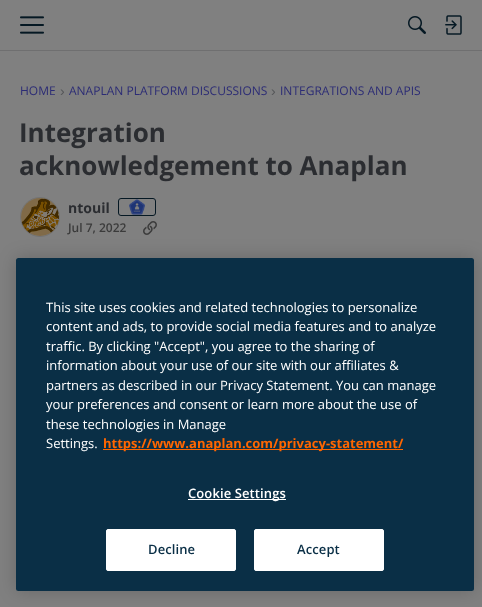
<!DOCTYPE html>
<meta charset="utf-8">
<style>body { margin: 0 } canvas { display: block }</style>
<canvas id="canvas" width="482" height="607"></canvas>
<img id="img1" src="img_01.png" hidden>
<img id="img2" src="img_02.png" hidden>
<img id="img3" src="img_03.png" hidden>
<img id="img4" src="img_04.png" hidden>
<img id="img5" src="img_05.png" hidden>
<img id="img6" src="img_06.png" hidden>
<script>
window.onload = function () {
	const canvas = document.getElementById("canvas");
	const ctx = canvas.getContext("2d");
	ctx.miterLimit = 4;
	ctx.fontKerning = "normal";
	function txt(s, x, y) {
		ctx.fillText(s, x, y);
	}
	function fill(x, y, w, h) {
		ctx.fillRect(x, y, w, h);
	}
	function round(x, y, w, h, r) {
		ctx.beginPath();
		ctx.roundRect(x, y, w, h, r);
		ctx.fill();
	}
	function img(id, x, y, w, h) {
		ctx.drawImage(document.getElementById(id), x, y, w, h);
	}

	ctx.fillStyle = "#808080";
	fill(0, 0, 482, 607);
	ctx.fillStyle = "#6F6F70";
	fill(0, 50, 482, 1);
	img("img1", 20, 16, 24, 18);
	img("img2", 408, 16, 18, 18);
	img("img3", 445, 15, 17, 20);
	ctx.beginPath();
	ctx.arc(40, 217, 19.5, 0, Math.PI * 2);
	ctx.strokeStyle = "#737374";
	ctx.stroke();
	img("img4", 21, 198, 38, 38);
	ctx.beginPath();
	ctx.roundRect(118.5, 198.5, 37, 17, 2.5);
	ctx.strokeStyle = "#051823";
	ctx.stroke();
	img("img5", 129, 199, 16, 16);
	img("img6", 143, 221, 14, 14);
	ctx.fillStyle = "rgba(0, 0, 0, 0.2)";
	ctx.filter = "blur(9px)";
	ctx.beginPath();
	ctx.roundRect(16, 258, 458, 333, 2.5);
	ctx.fill();
	ctx.filter = "none";
	ctx.fillStyle = "#0A2F46";
	round(16, 258, 458, 333, 2.5);
	ctx.fillStyle = "#FF6600";
	fill(103, 449, 300, 1);
	ctx.fillStyle = "#FFFFFF";
	fill(188, 499, 98, 1);
	ctx.beginPath();
	ctx.roundRect(106.5, 529.5, 129, 41, 1.5);
	ctx.fill();
	ctx.strokeStyle = "#FFFFFF";
	ctx.stroke();
	ctx.beginPath();
	ctx.roundRect(254.5, 529.5, 129, 41, 1.5);
	ctx.fill();
	ctx.stroke();
	ctx.font = "12px Open Sans";
	ctx.fillStyle = "#2C2C75";
	txt("HOME", 20, 95);
	ctx.font = "14px Liberation Sans";
	ctx.fillStyle = "#555759";
	txt("›", 60, 96);
	ctx.font = "12px Open Sans";
	ctx.fillStyle = "#2C2C75";
	txt("ANAPLAN PLATFORM DISCUSSIONS", 69, 95);
	ctx.font = "14px Liberation Sans";
	ctx.fillStyle = "#555759";
	txt("›", 271, 96);
	ctx.font = "12px Open Sans";
	ctx.fillStyle = "#2C2C75";
	txt("INTEGRATIONS AND APIS", 280, 95);
	ctx.font = "bold 26px Open Sans";
	ctx.fillStyle = "#2B2D31";
	txt("Integration", 19, 142);
	txt("acknowledgement to Anaplan", 19, 175);
	ctx.font = "bold 14px Open Sans";
	txt("ntouil", 68, 213);
	ctx.font = "600 12px Open Sans";
	ctx.fillStyle = "#3B3B3B";
	txt("Jul 7, 2022", 68, 232);
	ctx.font = "13px Open Sans";
	ctx.fillStyle = "#FFFFFF";
	txt("This site uses cookies and related technologies to personalize", 46, 312);
	txt("content and ads, to provide social media features and to analyze", 46, 331);
	txt("traffic. By clicking \"Accept\", you agree to the sharing of", 46, 351);
	txt("information about your use of our site with our affiliates &", 46, 370);
	txt("partners as described in our Privacy Statement. You can manage", 46, 390);
	txt("your preferences and consent or learn more about the use of", 46, 409);
	txt("these technologies in Manage", 46, 429);
	txt("Settings.", 46, 448);
	ctx.font = "bold 13px Open Sans";
	ctx.fillStyle = "#FF6600";
	txt("https://www.anaplan.com/privacy-statement/", 103, 448);
	ctx.letterSpacing = "0.1px";
	ctx.font = "600 13px Open Sans";
	ctx.fillStyle = "#FFFFFF";
	txt("Cookie Settings", 188, 498);
	ctx.fillStyle = "#0A2F46";
	txt("Decline", 148, 554);
	txt("Accept", 297, 554);
};
</script>
